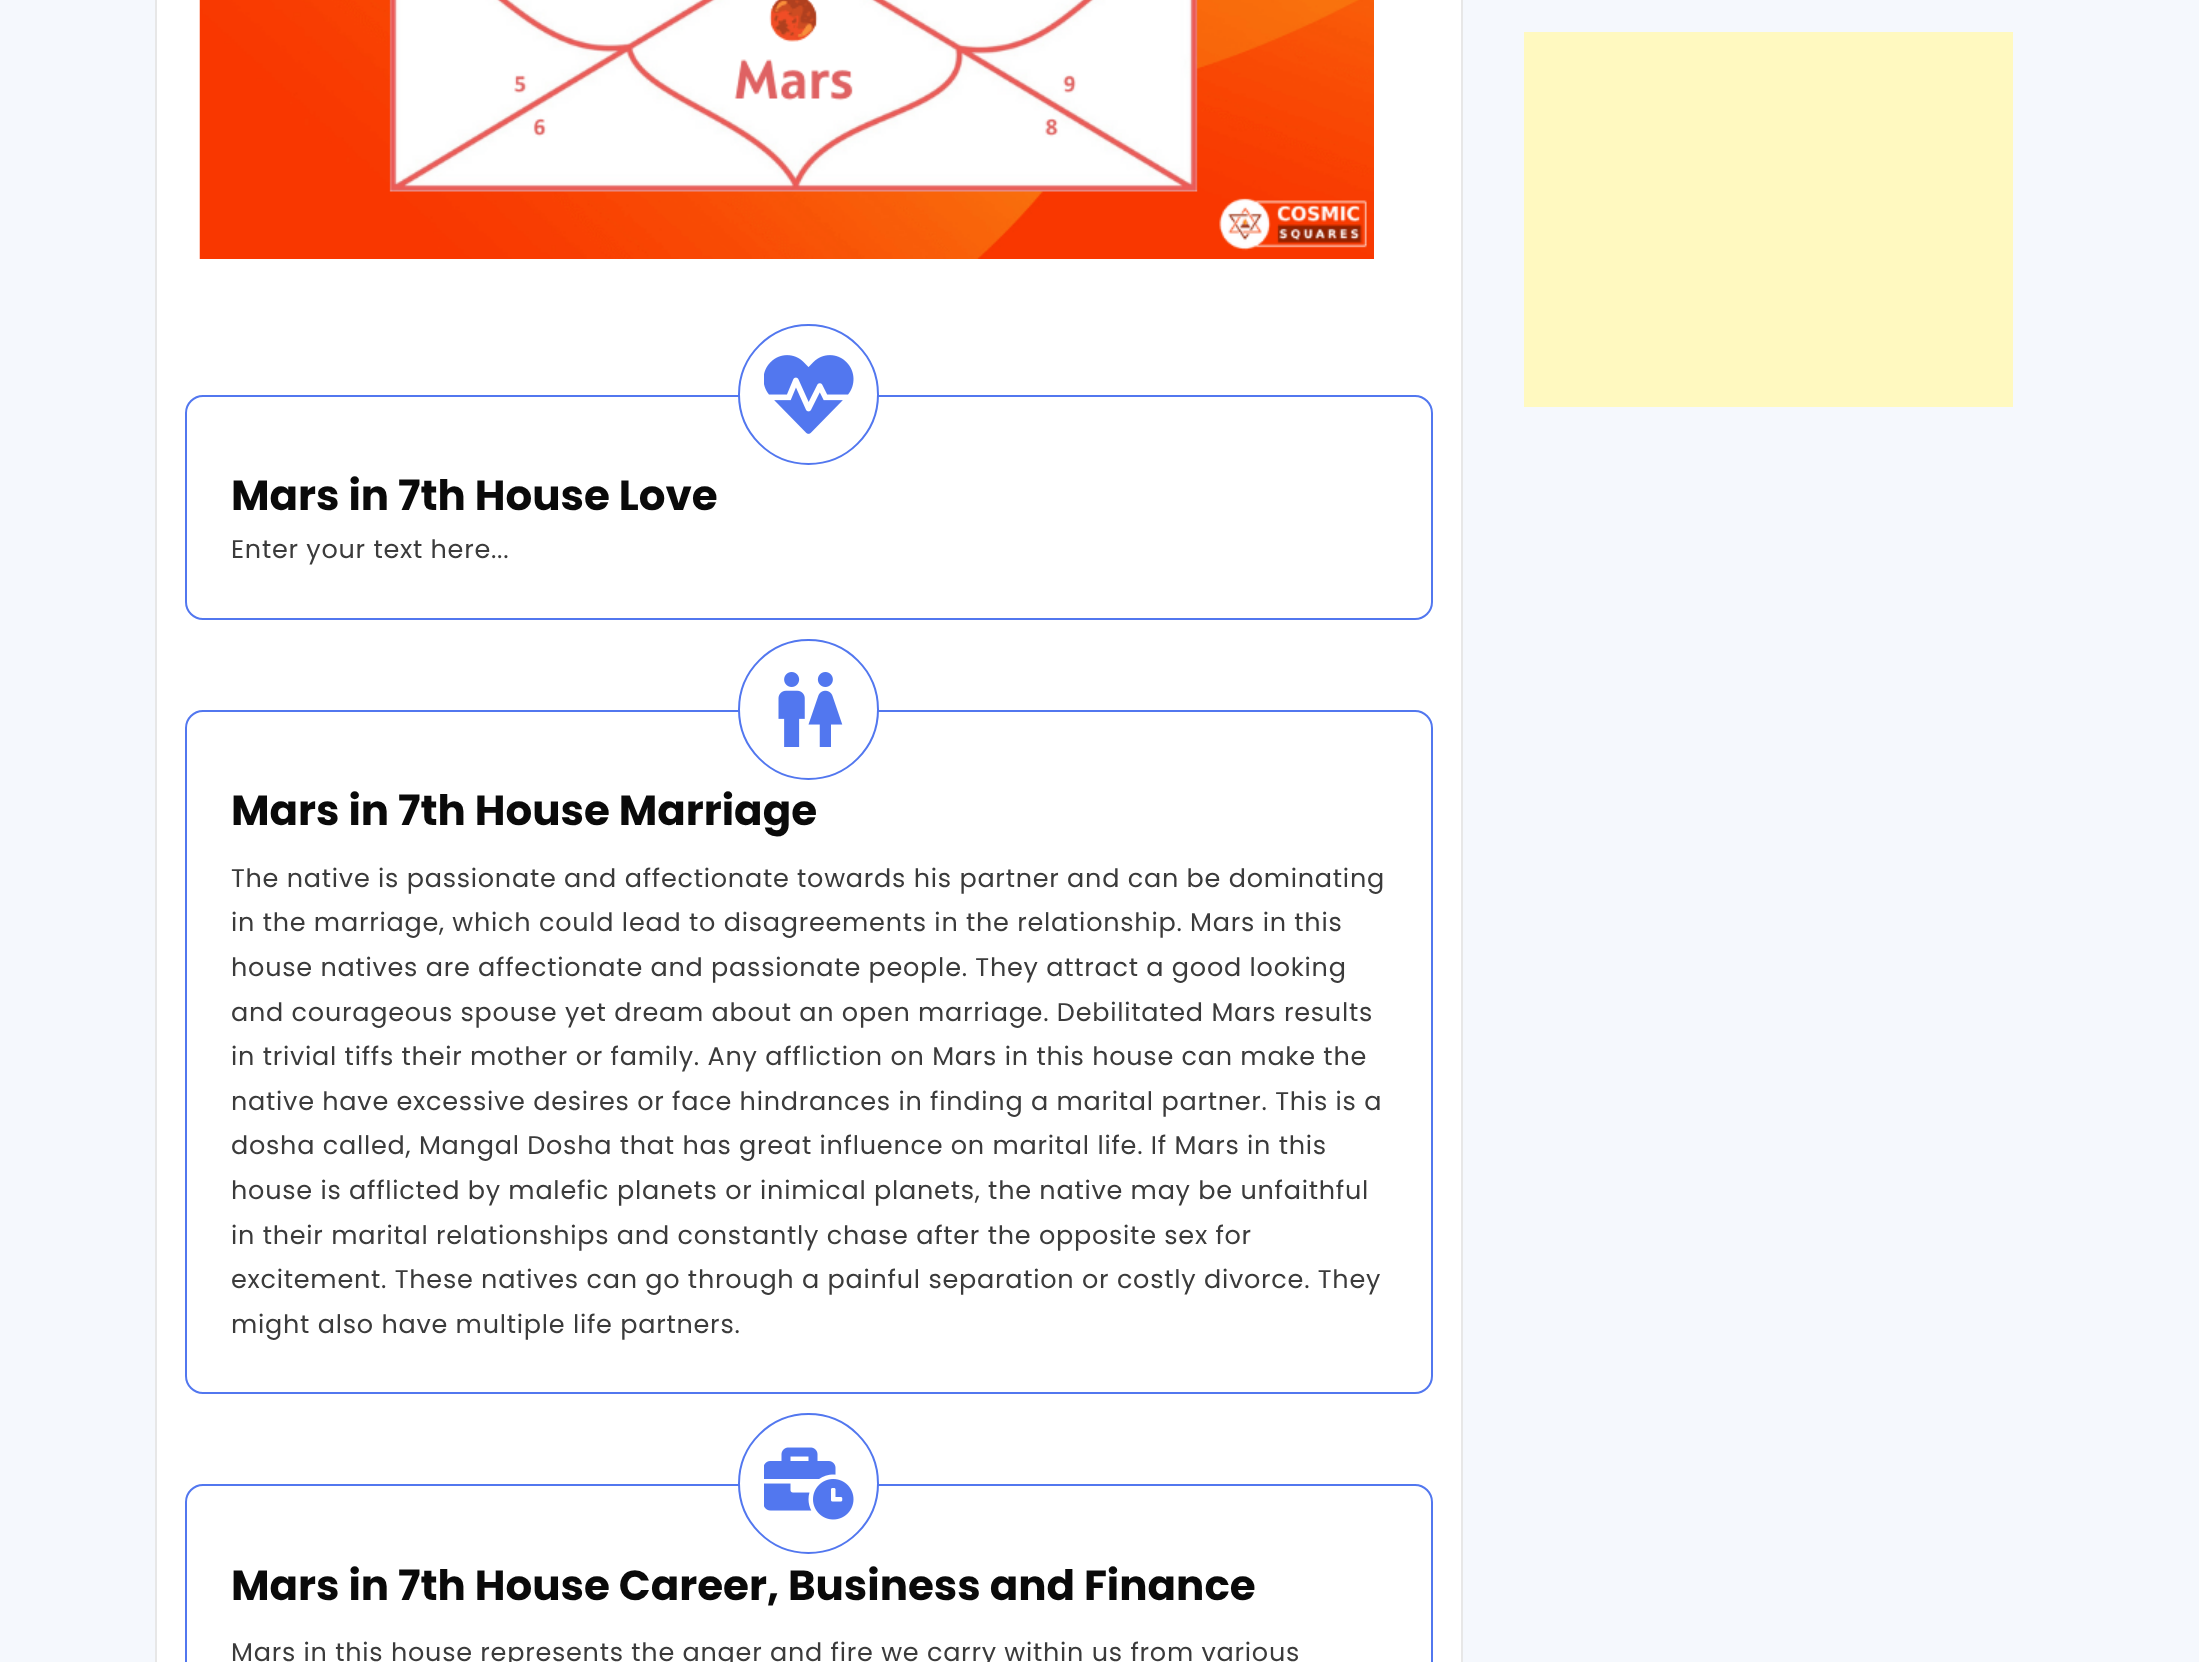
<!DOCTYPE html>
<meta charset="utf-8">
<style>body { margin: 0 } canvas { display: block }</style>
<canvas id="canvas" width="2199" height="1662"></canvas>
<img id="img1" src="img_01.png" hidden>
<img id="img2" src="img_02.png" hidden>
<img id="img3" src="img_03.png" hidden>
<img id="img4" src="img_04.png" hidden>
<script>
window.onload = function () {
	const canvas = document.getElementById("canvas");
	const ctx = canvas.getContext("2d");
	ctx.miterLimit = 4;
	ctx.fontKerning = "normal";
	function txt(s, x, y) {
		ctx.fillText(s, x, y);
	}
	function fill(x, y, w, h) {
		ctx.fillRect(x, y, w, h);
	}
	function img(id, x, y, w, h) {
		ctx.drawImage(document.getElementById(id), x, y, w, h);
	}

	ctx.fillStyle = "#F5F8FD";
	fill(0, 0, 2199, 1662);
	ctx.fillStyle = "#FFF9C0";
	fill(1524, 32, 489, 375);
	ctx.fillStyle = "#FFFFFF";
	ctx.beginPath();
	ctx.rect(156, -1, 1306, 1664);
	ctx.fill();
	ctx.strokeStyle = "#E7E7E7";
	ctx.lineWidth = 2;
	ctx.stroke();
	img("img1", 199, 0, 1175, 259);
	ctx.beginPath();
	ctx.roundRect(186, 396, 1246, 223, 17);
	ctx.strokeStyle = "#5277EF";
	ctx.stroke();
	ctx.beginPath();
	ctx.arc(808.5, 394.5, 69.5, 0, Math.PI * 2);
	ctx.fill();
	ctx.stroke();
	img("img2", 764, 355, 90, 79);
	ctx.beginPath();
	ctx.roundRect(186, 711, 1246, 682, 17);
	ctx.stroke();
	ctx.beginPath();
	ctx.arc(808.5, 709.5, 69.5, 0, Math.PI * 2);
	ctx.fill();
	ctx.stroke();
	img("img3", 778, 672, 65, 75);
	ctx.beginPath();
	ctx.roundRect(186, 1485, 1246, 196, 17);
	ctx.stroke();
	ctx.beginPath();
	ctx.arc(808.5, 1483.5, 69.5, 0, Math.PI * 2);
	ctx.fill();
	ctx.stroke();
	img("img4", 764, 1447, 90, 73);
	ctx.font = "bold 42px Poppins";
	ctx.fillStyle = "#0A0A0A";
	txt("Mars in 7th House Love", 231, 510);
	ctx.letterSpacing = "0.75px";
	ctx.font = "25.5px Poppins";
	ctx.fillStyle = "#3B3B3B";
	txt("Enter your text here...", 231, 558);
	ctx.letterSpacing = "0px";
	ctx.font = "bold 42px Poppins";
	ctx.fillStyle = "#0A0A0A";
	txt("Mars in 7th House Marriage", 231, 825);
	ctx.letterSpacing = "0.75px";
	ctx.font = "25.5px Poppins";
	ctx.fillStyle = "#3B3B3B";
	txt("The native is passionate and affectionate towards his partner and can be dominating", 231, 887);
	txt("in the marriage, which could lead to disagreements in the relationship. Mars in this", 231, 931);
	txt("house natives are affectionate and passionate people. They attract a good looking", 231, 976);
	txt("and courageous spouse yet dream about an open marriage. Debilitated Mars results", 231, 1021);
	txt("in trivial tiffs their mother or family. Any affliction on Mars in this house can make the", 231, 1065);
	txt("native have excessive desires or face hindrances in finding a marital partner. This is a", 231, 1110);
	txt("dosha called, Mangal Dosha that has great influence on marital life. If Mars in this", 231, 1154);
	txt("house is afflicted by malefic planets or inimical planets, the native may be unfaithful", 231, 1199);
	txt("in their marital relationships and constantly chase after the opposite sex for", 231, 1244);
	txt("excitement. These natives can go through a painful separation or costly divorce. They", 231, 1288);
	txt("might also have multiple life partners.", 231, 1333);
	ctx.letterSpacing = "0px";
	ctx.font = "bold 42px Poppins";
	ctx.fillStyle = "#0A0A0A";
	txt("Mars in 7th House Career, Business and Finance", 231, 1600);
	ctx.letterSpacing = "0.75px";
	ctx.font = "25.5px Poppins";
	ctx.fillStyle = "#3B3B3B";
	txt("Mars in this house represents the anger and fire we carry within us from various", 231, 1661);
};
</script>
